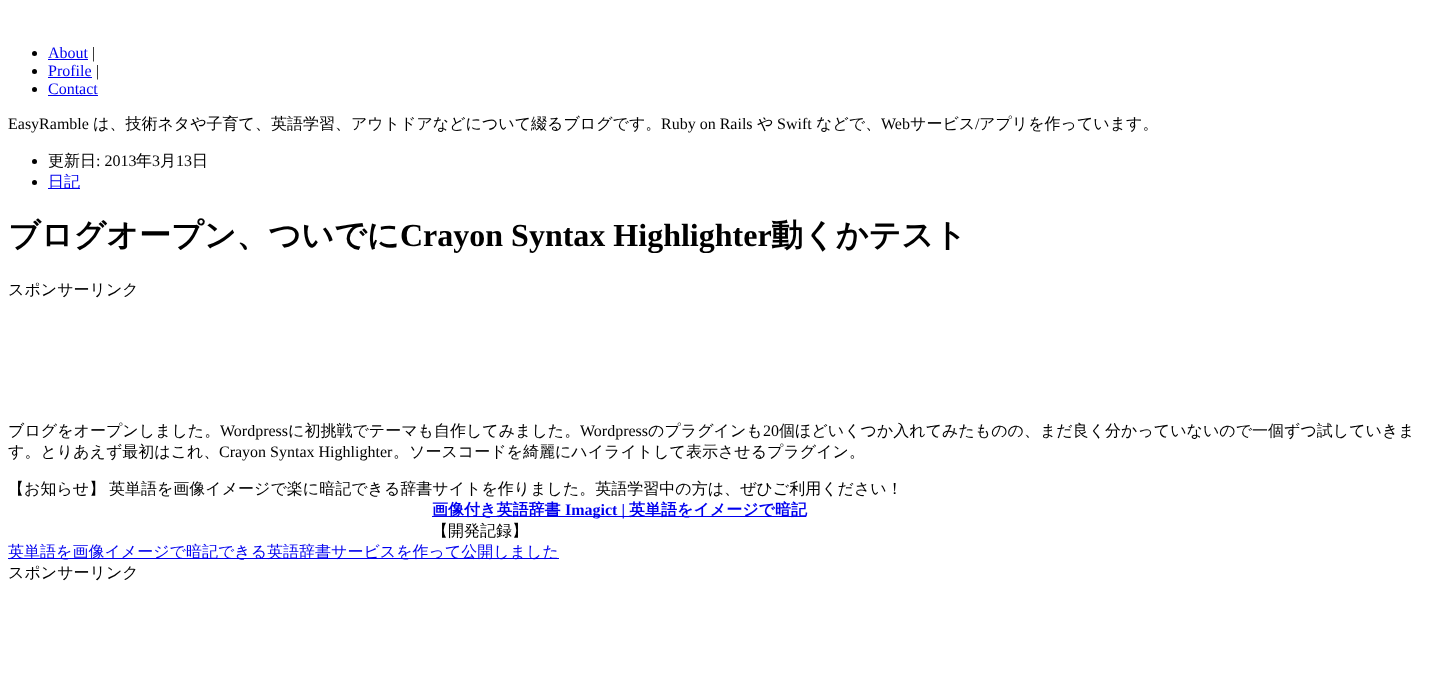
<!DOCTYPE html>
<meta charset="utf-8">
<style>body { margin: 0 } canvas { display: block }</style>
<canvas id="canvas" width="1430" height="699"></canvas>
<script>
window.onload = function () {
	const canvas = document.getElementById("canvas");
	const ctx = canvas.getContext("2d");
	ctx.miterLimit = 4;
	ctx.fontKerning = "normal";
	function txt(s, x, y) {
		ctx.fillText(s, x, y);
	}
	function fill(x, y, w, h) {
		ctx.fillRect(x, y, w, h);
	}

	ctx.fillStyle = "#FFFFFF";
	fill(0, 0, 1430, 699);
	ctx.fillStyle = "#000000";
	ctx.beginPath();
	ctx.arc(34.5, 53.5, 2.5, 0, Math.PI * 2);
	ctx.fill();
	ctx.fillStyle = "#0000EE";
	fill(48, 59, 40, 1);
	ctx.fillStyle = "#000000";
	ctx.beginPath();
	ctx.arc(34.5, 71.5, 2.5, 0, Math.PI * 2);
	ctx.fill();
	ctx.fillStyle = "#0000EE";
	fill(48, 77, 44, 1);
	ctx.fillStyle = "#000000";
	ctx.beginPath();
	ctx.arc(34.5, 89.5, 2.5, 0, Math.PI * 2);
	ctx.fill();
	ctx.fillStyle = "#0000EE";
	fill(48, 95, 50, 1);
	ctx.fillStyle = "#000000";
	ctx.beginPath();
	ctx.arc(34.5, 161.5, 2.5, 0, Math.PI * 2);
	ctx.fill();
	ctx.beginPath();
	ctx.arc(34.5, 182.5, 2.5, 0, Math.PI * 2);
	ctx.fill();
	ctx.fillStyle = "#0000EE";
	fill(48, 188, 32, 1);
	fill(432, 516, 374, 1);
	fill(8, 558, 551, 1);
	ctx.font = "16px Liberation Serif";
	txt("About", 48, 58);
	ctx.fillStyle = "#000000";
	txt("|", 92, 58);
	ctx.fillStyle = "#0000EE";
	txt("Profile", 48, 76);
	ctx.fillStyle = "#000000";
	txt("|", 96, 76);
	ctx.fillStyle = "#0000EE";
	txt("Contact", 48, 94);
	ctx.fillStyle = "#000000";
	txt("EasyRamble", 8, 129);
	ctx.font = "500 16px WenQuanYi Zen Hei";
	txt("は、技術ネタや子育て、英語学習、アウトドアなどについて綴るブログです。", 93, 129);
	ctx.font = "16px Liberation Serif";
	txt("Ruby on Rails", 661, 129);
	ctx.font = "500 16px WenQuanYi Zen Hei";
	txt("や", 757, 129);
	ctx.font = "16px Liberation Serif";
	txt("Swift", 777, 129);
	ctx.font = "500 16px WenQuanYi Zen Hei";
	txt("などで、", 816, 129);
	ctx.font = "16px Liberation Serif";
	txt("Web", 881, 129);
	ctx.font = "500 16px WenQuanYi Zen Hei";
	txt("サービス", 910, 129);
	ctx.font = "16px Liberation Serif";
	txt("/", 975, 129);
	ctx.font = "500 16px WenQuanYi Zen Hei";
	txt("アプリを作っています。", 979, 129);
	txt("更新日", 48, 166);
	ctx.font = "16px Liberation Serif";
	txt(": 2013", 96, 166);
	ctx.font = "500 16px WenQuanYi Zen Hei";
	txt("年", 136, 166);
	ctx.font = "16px Liberation Serif";
	txt("3", 152, 166);
	ctx.font = "500 16px WenQuanYi Zen Hei";
	txt("月", 160, 166);
	ctx.font = "16px Liberation Serif";
	txt("13", 176, 166);
	ctx.font = "500 16px WenQuanYi Zen Hei";
	txt("日", 192, 166);
	ctx.fillStyle = "#0000EE";
	txt("日記", 48, 187);
	ctx.font = "bold 32px WenQuanYi Zen Hei";
	ctx.fillStyle = "#000000";
	txt("ブログオープン、ついでに", 8, 246);
	ctx.font = "bold 32px Liberation Serif";
	txt("Crayon Syntax Highlighter", 400, 246);
	ctx.font = "bold 32px WenQuanYi Zen Hei";
	txt("動くかテスト", 771, 246);
	ctx.font = "500 16px WenQuanYi Zen Hei";
	txt("スポンサーリンク", 8, 295);
	txt("ブログをオープンしました。", 8, 436);
	ctx.font = "16px Liberation Serif";
	txt("Wordpress", 220, 436);
	ctx.font = "500 16px WenQuanYi Zen Hei";
	txt("に初挑戦でテーマも自作してみました。", 288, 436);
	ctx.font = "16px Liberation Serif";
	txt("Wordpress", 580, 436);
	ctx.font = "500 16px WenQuanYi Zen Hei";
	txt("のプラグインも", 648, 436);
	ctx.font = "16px Liberation Serif";
	txt("20", 763, 436);
	ctx.font = "500 16px WenQuanYi Zen Hei";
	txt("個ほどいくつか入れてみたものの、まだ良く分かっていないので一個ずつ試していきま", 779, 436);
	txt("す。とりあえず最初はこれ、", 8, 457);
	ctx.font = "16px Liberation Serif";
	txt("Crayon Syntax Highlighter", 219, 457);
	ctx.font = "500 16px WenQuanYi Zen Hei";
	txt("。ソースコードを綺麗にハイライトして表示させるプラグイン。", 393, 457);
	ctx.wordSpacing = "-1px";
	txt("【お知らせ】 英単語を画像イメージで楽に暗記できる辞書サイトを作りました。英語学習中の方は、ぜひご利用ください！", 8, 494);
	ctx.wordSpacing = "0px";
	ctx.font = "bold 16px WenQuanYi Zen Hei";
	ctx.fillStyle = "#0000EE";
	txt("画像付き英語辞書", 432, 515);
	ctx.font = "bold 16px Liberation Serif";
	txt("Imagict |", 565, 515);
	ctx.font = "bold 16px WenQuanYi Zen Hei";
	txt("英単語をイメージで暗記", 629, 515);
	ctx.font = "500 16px WenQuanYi Zen Hei";
	ctx.fillStyle = "#000000";
	txt("【開発記録】", 432, 536);
	ctx.fillStyle = "#0000EE";
	txt("英単語を画像イメージで暗記できる英語辞書サービスを作って公開しました", 8, 557);
	ctx.fillStyle = "#000000";
	txt("スポンサーリンク", 8, 578);
};
</script>
